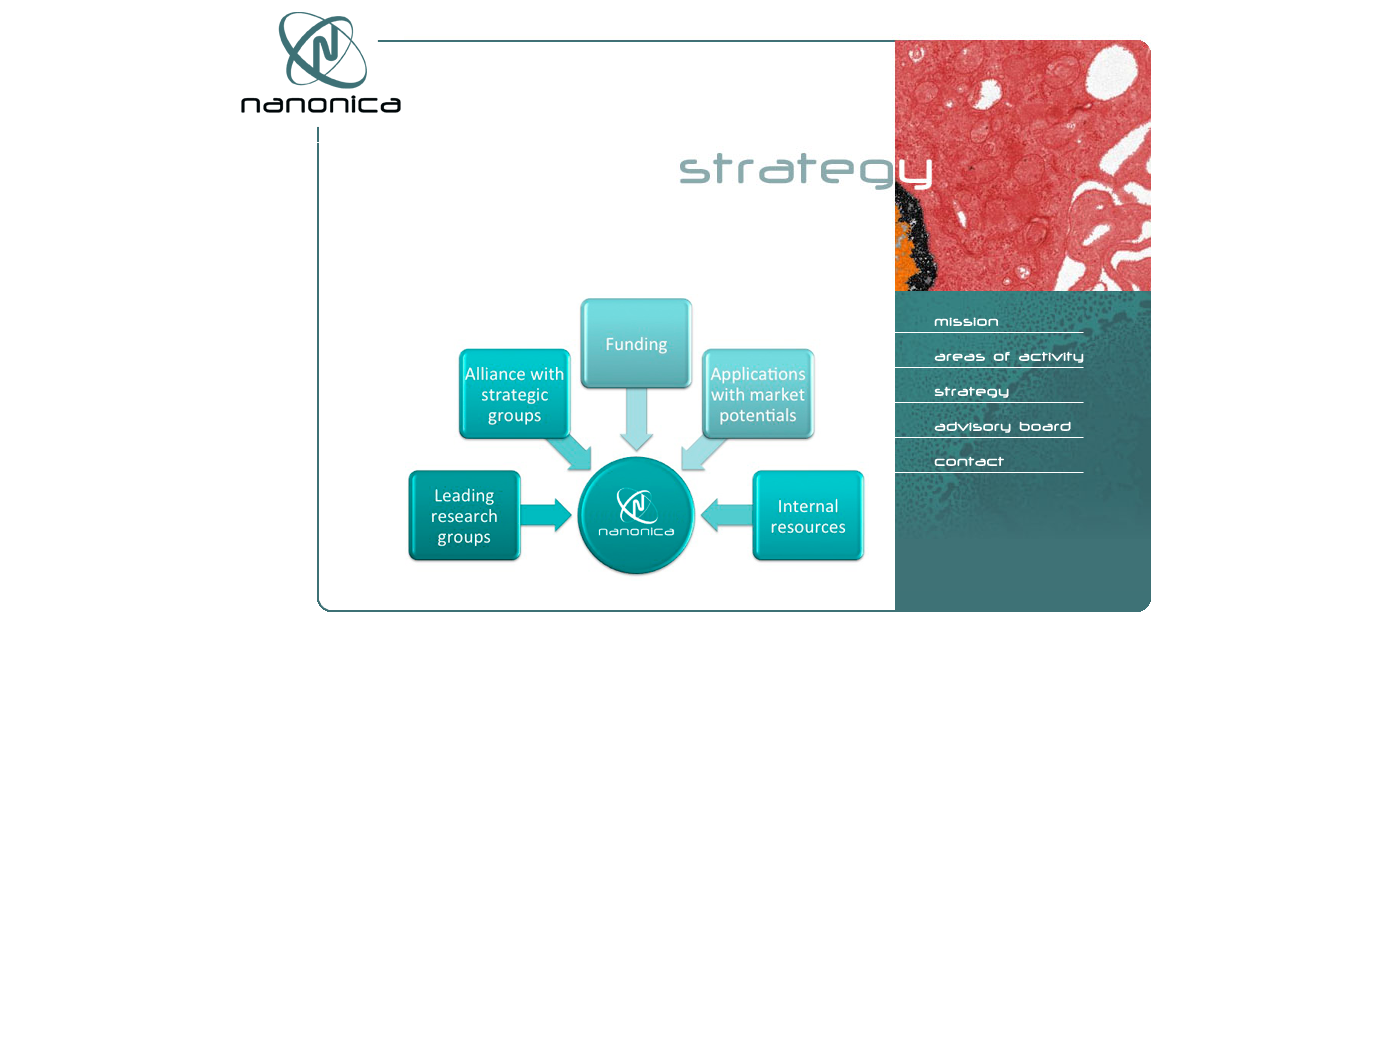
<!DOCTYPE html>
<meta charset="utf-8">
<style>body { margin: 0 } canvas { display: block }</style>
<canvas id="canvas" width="1393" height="1053"></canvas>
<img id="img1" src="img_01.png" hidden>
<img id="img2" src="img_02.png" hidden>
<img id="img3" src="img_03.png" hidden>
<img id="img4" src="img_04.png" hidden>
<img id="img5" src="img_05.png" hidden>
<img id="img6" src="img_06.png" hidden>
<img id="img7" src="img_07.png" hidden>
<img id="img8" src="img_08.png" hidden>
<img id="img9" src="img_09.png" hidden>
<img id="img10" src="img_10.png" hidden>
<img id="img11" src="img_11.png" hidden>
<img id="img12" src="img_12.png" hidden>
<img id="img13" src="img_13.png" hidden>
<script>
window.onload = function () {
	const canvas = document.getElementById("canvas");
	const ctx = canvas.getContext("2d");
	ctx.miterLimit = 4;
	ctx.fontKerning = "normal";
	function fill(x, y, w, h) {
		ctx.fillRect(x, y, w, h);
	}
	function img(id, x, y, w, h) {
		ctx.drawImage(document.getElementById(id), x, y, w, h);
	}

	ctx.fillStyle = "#FFFFFF";
	fill(0, 0, 1393, 1053);
	img("img1", 241, 12, 163, 101);
	img("img2", 404, 34, 747, 257);
	img("img3", 317, 126, 2, 465);
	img("img4", 317, 142, 2, 418);
	img("img5", 405, 294, 464, 287);
	ctx.fillStyle = "#3F7276";
	fill(895, 539, 256, 52);
	img("img6", 895, 291, 256, 248);
	img("img7", 895, 317, 189, 16);
	img("img8", 895, 351, 189, 17);
	img("img9", 895, 386, 189, 17);
	img("img10", 895, 421, 189, 17);
	img("img11", 895, 456, 189, 17);
	img("img12", 317, 591, 833, 21);
	img("img13", 1150, 591, 1, 12);
};
</script>
